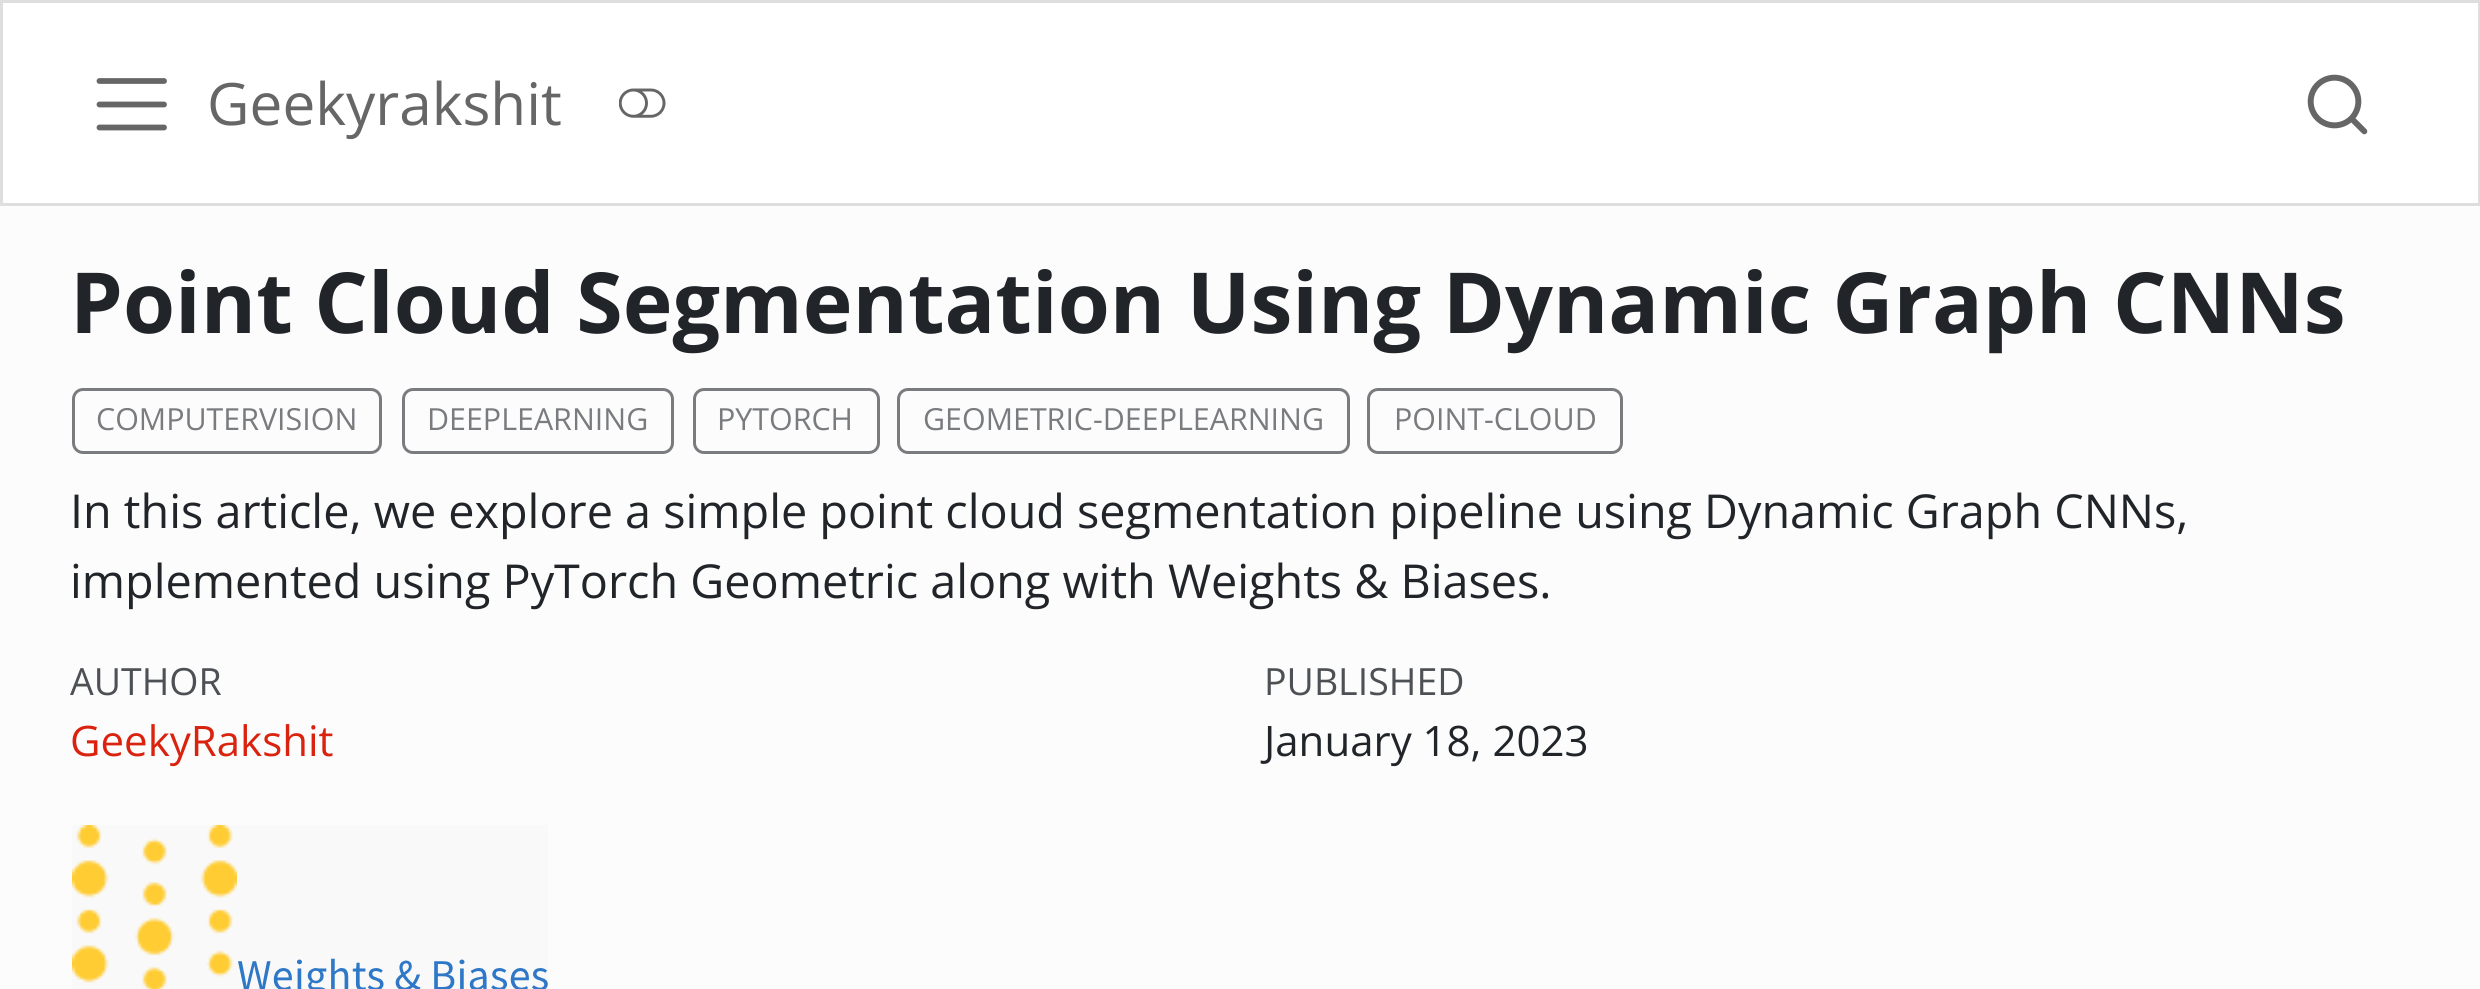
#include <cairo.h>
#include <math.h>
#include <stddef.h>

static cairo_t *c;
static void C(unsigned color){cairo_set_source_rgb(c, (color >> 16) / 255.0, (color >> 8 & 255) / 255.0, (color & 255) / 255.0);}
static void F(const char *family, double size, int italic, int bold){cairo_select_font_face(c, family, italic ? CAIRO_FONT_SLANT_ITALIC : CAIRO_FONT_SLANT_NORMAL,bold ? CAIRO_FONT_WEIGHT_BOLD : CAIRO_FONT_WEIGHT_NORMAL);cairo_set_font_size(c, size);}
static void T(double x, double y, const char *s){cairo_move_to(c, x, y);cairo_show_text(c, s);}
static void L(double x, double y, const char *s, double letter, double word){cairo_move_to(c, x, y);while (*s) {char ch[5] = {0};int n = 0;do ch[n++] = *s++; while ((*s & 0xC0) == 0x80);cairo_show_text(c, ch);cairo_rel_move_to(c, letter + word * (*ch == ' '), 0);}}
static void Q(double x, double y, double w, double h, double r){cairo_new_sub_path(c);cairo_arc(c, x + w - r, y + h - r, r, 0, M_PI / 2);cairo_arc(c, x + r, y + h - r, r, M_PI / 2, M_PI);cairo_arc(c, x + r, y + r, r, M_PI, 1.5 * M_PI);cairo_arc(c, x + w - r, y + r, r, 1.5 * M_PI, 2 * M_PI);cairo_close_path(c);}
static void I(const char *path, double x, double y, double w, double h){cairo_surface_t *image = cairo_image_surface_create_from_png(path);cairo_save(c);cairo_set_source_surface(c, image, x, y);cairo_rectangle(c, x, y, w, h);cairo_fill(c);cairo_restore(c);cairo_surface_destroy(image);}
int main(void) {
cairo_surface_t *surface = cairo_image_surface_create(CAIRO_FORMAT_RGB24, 2480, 989);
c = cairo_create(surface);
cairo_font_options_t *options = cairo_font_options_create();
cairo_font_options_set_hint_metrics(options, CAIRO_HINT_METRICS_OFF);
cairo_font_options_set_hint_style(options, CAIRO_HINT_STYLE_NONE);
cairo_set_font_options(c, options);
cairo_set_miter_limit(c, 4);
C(0xfcfcfc);
cairo_paint(c);
C(0xffffff);
cairo_rectangle(c,1.5,1.5,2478,203);
cairo_fill_preserve(c);
C(0xdedede);
cairo_set_line_width(c,3);
cairo_stroke(c);
cairo_new_path(c);
cairo_move_to(c,99.5,81);
cairo_line_to(c,164,81);
cairo_move_to(c,99.5,104.5);
cairo_line_to(c,164,104.5);
cairo_move_to(c,99.5,127.5);
cairo_line_to(c,164,127.5);
C(0x666666);
cairo_set_line_width(c,5.8);
cairo_set_line_cap(c,CAIRO_LINE_CAP_ROUND);
cairo_stroke(c);
F("Open Sans",58.5,0,0);
T(207,125,"Geekyrakshit");
I("1.png",619,88,47,30);
I("2.png",2307,74,61,61);
F("Open Sans",84.25,0,1);
C(0x212529);
L(70,333,"Point Cloud Segmentation Using Dynamic Graph CNNs",0,-.25);
Q(73.5,389.5,307,63,9.5);
C(0x797b7e);
cairo_set_line_width(c,3);
cairo_set_line_cap(c,CAIRO_LINE_CAP_BUTT);
cairo_stroke(c);
F("Open Sans",30.4,0,0);
T(96,430,"COMPUTERVISION");
Q(403.5,389.5,269,63,9.5);
cairo_stroke(c);
T(427,430,"DEEPLEARNING");
Q(694.5,389.5,184,63,9.5);
cairo_stroke(c);
T(717,430,"PYTORCH");
Q(898.5,389.5,450,63,9.5);
cairo_stroke(c);
T(923,430,"GEOMETRIC-DEEPLEARNING");
Q(1368.5,389.5,253,63,9.5);
cairo_stroke(c);
T(1394,430,"POINT-CLOUD");
F("Open Sans",46.75,0,0);
C(0x212529);
T(70,528,"In this article, we explore a simple point cloud segmentation pipeline using Dynamic Graph CNNs,");
T(70,598,"implemented using PyTorch Geometric along with Weights & Biases.");
F("Open Sans",37.5,0,0);
C(0x4d5054);
T(70,695,"AUTHOR");
F("Open Sans",42,0,0);
C(0xd9230f);
T(70,756,"GeekyRakshit");
F("Open Sans",37.5,0,0);
C(0x4d5054);
T(1264,695,"PUBLISHED");
F("Open Sans",42,0,0);
C(0x212529);
T(1264,756,"January 18, 2023");
I("3.png",72,825,476,164);
cairo_surface_write_to_png(surface, "o.png");
cairo_font_options_destroy(options);
cairo_destroy(c);
cairo_surface_destroy(surface);
return 0;
}
